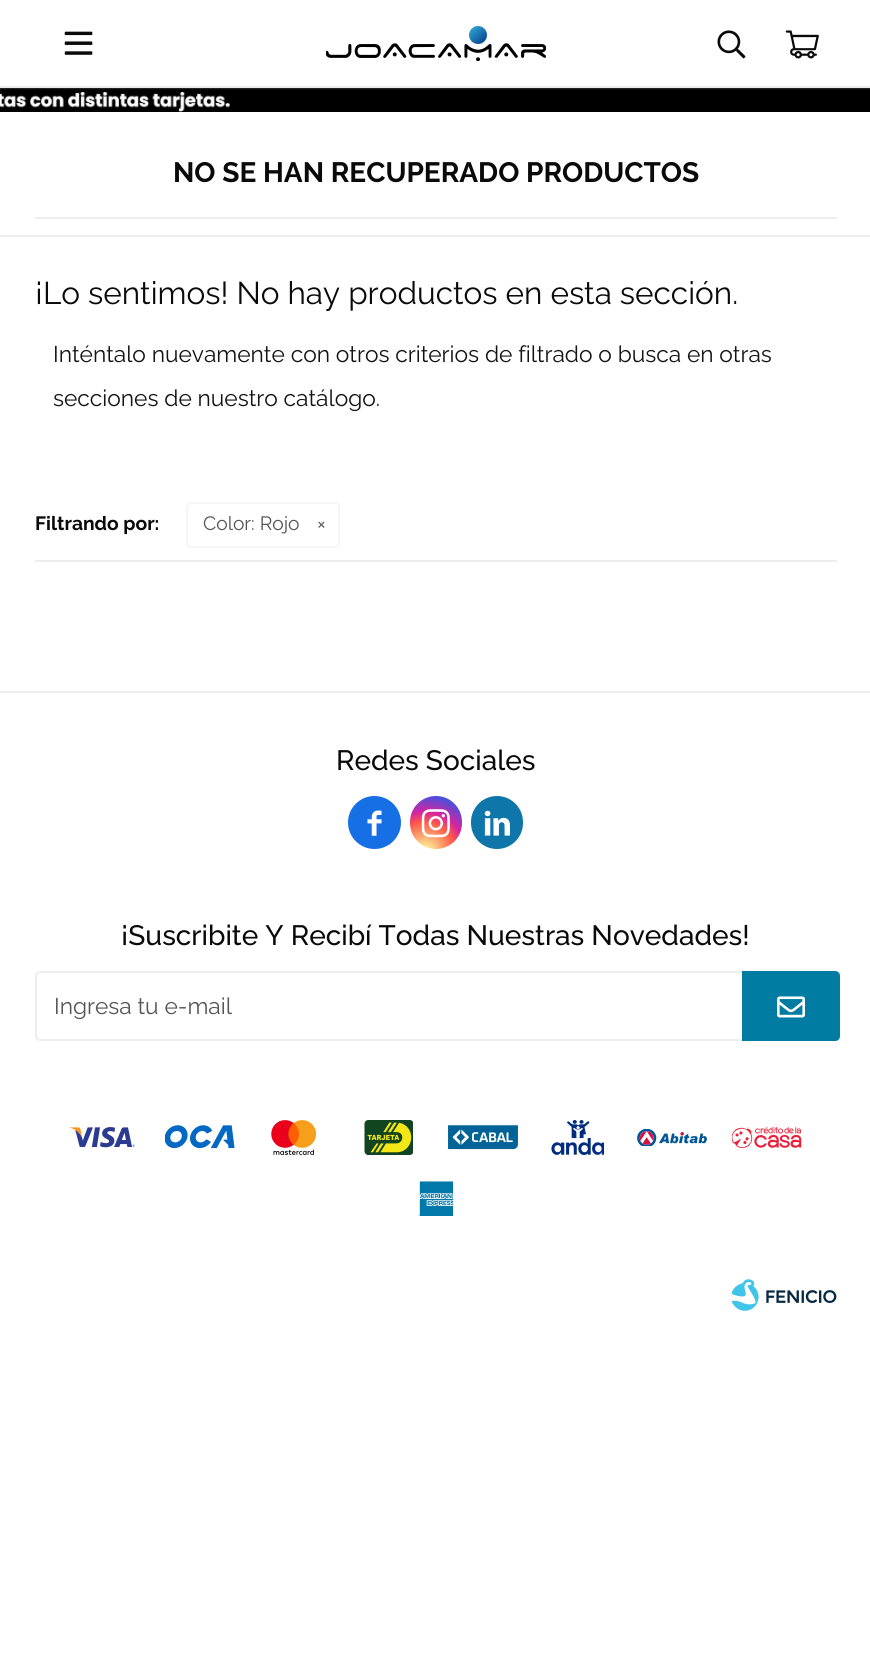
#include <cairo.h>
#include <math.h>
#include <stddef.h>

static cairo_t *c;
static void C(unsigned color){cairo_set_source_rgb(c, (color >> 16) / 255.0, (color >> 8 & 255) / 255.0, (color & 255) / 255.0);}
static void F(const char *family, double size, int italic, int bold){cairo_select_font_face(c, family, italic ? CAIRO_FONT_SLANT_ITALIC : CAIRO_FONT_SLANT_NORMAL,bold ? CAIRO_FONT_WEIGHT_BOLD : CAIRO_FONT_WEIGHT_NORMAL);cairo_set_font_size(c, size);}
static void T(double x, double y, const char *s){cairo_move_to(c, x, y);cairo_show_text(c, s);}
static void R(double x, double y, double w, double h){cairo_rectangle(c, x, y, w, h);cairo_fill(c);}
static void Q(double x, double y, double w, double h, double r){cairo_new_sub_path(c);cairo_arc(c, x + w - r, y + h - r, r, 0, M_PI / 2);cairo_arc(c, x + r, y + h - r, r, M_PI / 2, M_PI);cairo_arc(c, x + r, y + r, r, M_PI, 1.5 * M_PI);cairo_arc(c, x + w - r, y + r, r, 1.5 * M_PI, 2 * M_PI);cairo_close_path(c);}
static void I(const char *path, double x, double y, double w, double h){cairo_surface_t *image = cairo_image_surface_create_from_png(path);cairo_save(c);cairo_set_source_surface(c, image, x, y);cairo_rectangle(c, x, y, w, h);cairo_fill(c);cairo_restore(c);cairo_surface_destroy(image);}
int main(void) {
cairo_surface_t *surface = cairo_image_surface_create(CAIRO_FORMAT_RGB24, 870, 1661);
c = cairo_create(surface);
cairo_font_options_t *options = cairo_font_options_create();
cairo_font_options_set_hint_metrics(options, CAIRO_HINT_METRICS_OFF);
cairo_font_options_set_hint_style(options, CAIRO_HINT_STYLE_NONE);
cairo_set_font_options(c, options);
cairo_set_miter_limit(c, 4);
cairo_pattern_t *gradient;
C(0xffffff);
cairo_paint(c);
I("1.png",64,31,29,24);
I("2.png",326,26,220,35);
I("3.png",717,30,29,29);
I("4.png",785,30,34,29);
C(0xededed);
R(0,86,870,2);
C(0x232323);
R(0,88,870,2);
I("5.png",0,89,870,23);
C(0xededed);
R(35,217,802,2);
F("Raleway",28,0,1);
C(0x0a0a0a);
T(173,182,"NO SE HAN RECUPERADO PRODUCTOS");
C(0xededed);
R(0,235,870,2);
F("Raleway",31.5,0,0);
C(0x0a0a0a);
T(35,304,"¡Lo sentimos! No hay productos en esta sección.");
F("Raleway",22.75,0,0);
C(0x141414);
T(53,362,"Inténtalo nuevamente con otros criterios de filtrado o busca en otras");
T(53,406,"secciones de nuestro catálogo.");
C(0xededed);
R(35,560,802,2);
F("Raleway",19.25,0,1);
C(0x0a0a0a);
T(35,530,"Filtrando por:");
Q(187,503,152,44,4);
C(0xf6f6f6);
cairo_stroke(c);
F("Raleway",19.25,0,0);
C(0x555555);
T(203,530,"Color: Rojo");
T(317,530,"×");
C(0xededed);
R(0,691,870,2);
F("Raleway Medium",28,0,0);
C(0x0a0a0a);
T(336,770,"Redes Sociales");
C(0x166fe5);
cairo_new_path(c);
cairo_arc(c,374.5,822.5,26.5,0,2 * M_PI);
cairo_fill(c);
I("6.png",367,810,15,26);
gradient = cairo_pattern_create_radial(425,852,0,425,852,67);
cairo_pattern_add_color_stop_rgba(gradient,0,0.992,0.957,0.592,1);
cairo_pattern_add_color_stop_rgba(gradient,.05,0.992,0.957,0.592,1);
cairo_pattern_add_color_stop_rgba(gradient,.45,0.992,0.349,0.286,1);
cairo_pattern_add_color_stop_rgba(gradient,.6,0.839,0.141,0.624,1);
cairo_pattern_add_color_stop_rgba(gradient,.9,0.157,0.353,0.922,1);
cairo_set_source(c,gradient);
cairo_pattern_destroy(gradient);
Q(410,796,52,53,26);
cairo_fill(c);
I("7.png",421,809,29,29);
C(0x0e76a8);
Q(471,796,52,53,26);
cairo_fill(c);
I("8.png",484,810,26,26);
C(0x0a0a0a);
T(121,945,"¡Suscribite Y Recibí Todas Nuestras Novedades!");
Q(36,972,800,68,4);
C(0xededed);
cairo_stroke(c);
F("Raleway",22.75,0,0);
C(0x555555);
T(54,1014,"Ingresa tu e-mail");
C(0x007ca2);
cairo_new_path(c);
cairo_move_to(c,742,971);
cairo_line_to(c,835,971);
cairo_curve_to(c,838,971,840,973,840,976);
cairo_line_to(c,840,1036);
cairo_curve_to(c,840,1039,838,1041,835,1041);
cairo_line_to(c,742,1041);
cairo_close_path(c);
cairo_fill(c);
I("9.png",777,996,28,22);
I("10.png",70,1127,65,21);
I("11.png",165,1125,70,24);
I("12.png",271,1120,46,35);
I("13.png",364,1120,49,35);
I("14.png",448,1125,70,25);
I("15.png",551,1120,53,35);
I("16.png",637,1129,70,17);
I("17.png",732,1127,70,21);
I("18.png",418,1181,35,35);
I("19.png",732,1279,105,32);
cairo_surface_write_to_png(surface, "o.png");
cairo_font_options_destroy(options);
cairo_destroy(c);
cairo_surface_destroy(surface);
return 0;
}
